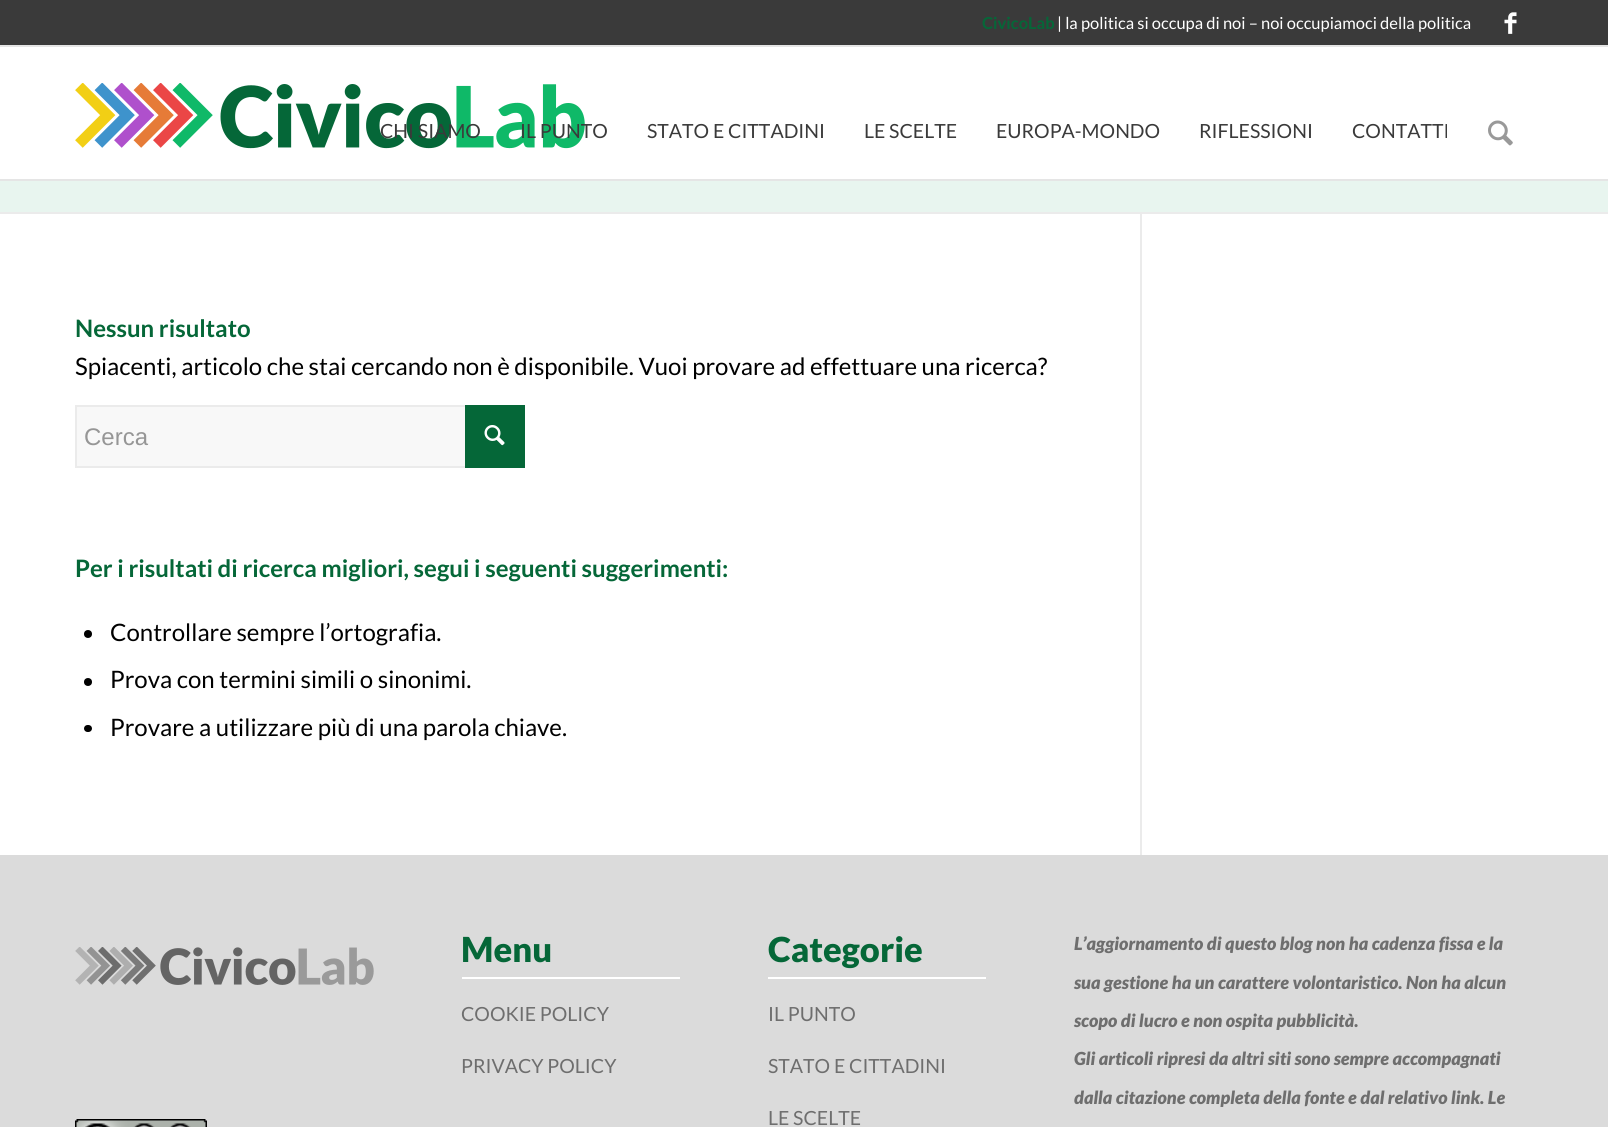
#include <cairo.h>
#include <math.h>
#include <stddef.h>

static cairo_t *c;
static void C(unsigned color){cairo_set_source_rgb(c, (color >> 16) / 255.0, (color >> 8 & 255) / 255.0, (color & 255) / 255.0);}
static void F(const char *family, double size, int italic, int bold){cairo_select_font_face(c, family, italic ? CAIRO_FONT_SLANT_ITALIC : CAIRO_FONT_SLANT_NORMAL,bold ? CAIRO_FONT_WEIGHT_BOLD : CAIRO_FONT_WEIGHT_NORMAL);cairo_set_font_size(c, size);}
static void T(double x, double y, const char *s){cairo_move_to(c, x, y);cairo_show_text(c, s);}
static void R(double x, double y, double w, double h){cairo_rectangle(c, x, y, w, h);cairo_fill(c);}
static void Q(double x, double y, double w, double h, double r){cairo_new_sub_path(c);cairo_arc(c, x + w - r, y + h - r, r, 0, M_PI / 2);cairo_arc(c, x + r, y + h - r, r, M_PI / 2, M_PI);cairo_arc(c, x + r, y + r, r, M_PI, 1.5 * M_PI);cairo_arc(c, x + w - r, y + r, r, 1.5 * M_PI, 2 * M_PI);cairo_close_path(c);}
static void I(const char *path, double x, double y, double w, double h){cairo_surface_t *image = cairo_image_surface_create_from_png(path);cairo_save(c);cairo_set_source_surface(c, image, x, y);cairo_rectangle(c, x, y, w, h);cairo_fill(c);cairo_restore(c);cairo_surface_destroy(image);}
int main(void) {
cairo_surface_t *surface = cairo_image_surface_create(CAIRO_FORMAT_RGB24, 1608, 1127);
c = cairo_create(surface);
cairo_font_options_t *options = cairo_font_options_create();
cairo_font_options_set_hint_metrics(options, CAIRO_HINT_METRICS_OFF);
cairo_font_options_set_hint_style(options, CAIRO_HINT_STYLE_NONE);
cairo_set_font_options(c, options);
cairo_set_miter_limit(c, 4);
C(0xffffff);
cairo_paint(c);
C(0x3a3a3a);
R(0,0,1608,45);
C(0xe5e5e5);
R(0,45,1608,2);
F("Lato",16.5,0,1);
C(0x056738);
T(982,29,"CivicoLab");
F("Lato",16.5,0,0);
C(0xffffff);
T(1057,29,"| la politica si occupa di noi – noi occupiamoci della politica");
I("1.png",1504,12,13,22);
C(0xe5e5e5);
R(0,179,1608,2);
I("2.png",75,83,510,66);
F("Lato",19.5,0,0);
C(0x3a3a3a);
T(380,138,"CHI SIAMO");
T(520,138,"IL PUNTO");
T(647,138,"STATO E CITTADINI");
T(864,138,"LE SCELTE");
T(996,138,"EUROPA-MONDO");
T(1199,138,"RIFLESSIONI");
T(1352,138,"CONTATTI");
I("3.png",1488,120,25,26);
C(0xe8f5ef);
R(0,181,1608,31);
C(0xebebeb);
R(0,212,1608,2);
R(1140,213,2,642);
F("Lato",24,0,1);
C(0x056738);
T(75,337,"Nessun risultato");
F("Lato",24,0,0);
C(0x000000);
T(75,375,"Spiacenti, articolo che stai cercando non è disponibile. Vuoi provare ad effettuare una ricerca?");
C(0xf8f8f8);
R(77,407,388,59);
cairo_rectangle(c,76,406,448,61);
C(0xebebeb);
cairo_stroke(c);
F("Liberation Sans",24,0,0);
C(0x969696);
T(84,445,"Cerca");
C(0x056738);
R(465,405,60,63);
I("4.png",484,425,21,21);
F("Lato",24,0,1);
T(75,577,"Per i risultati di ricerca migliori, segui i seguenti suggerimenti:");
C(0x000000);
cairo_new_path(c);
cairo_arc(c,88,634,4,0,2 * M_PI);
cairo_fill(c);
F("Lato",24,0,0);
T(110,641,"Controllare sempre l’ortografia.");
cairo_new_path(c);
cairo_arc(c,88,682,4,0,2 * M_PI);
cairo_fill(c);
T(110,688,"Prova con termini simili o sinonimi.");
Q(84,725,8,7,3.5);
cairo_fill(c);
T(110,736,"Provare a utilizzare più di una parola chiave.");
C(0xdbdbdb);
R(0,855,1608,272);
I("5.png",75,947,299,38);
I("6.png",75,1119,132,8);
C(0xffffff);
R(462,977,218,2);
F("Lato Black",34.5,0,0);
C(0x056738);
T(461,962,"Menu");
F("Lato",19.5,0,0);
C(0x6e6e6e);
T(461,1021,"COOKIE POLICY");
T(461,1073,"PRIVACY POLICY");
C(0xffffff);
R(768,977,218,2);
F("Lato Black",34.5,0,0);
C(0x056738);
T(768,962,"Categorie");
F("Lato",19.5,0,0);
C(0x6e6e6e);
T(768,1021,"IL PUNTO");
T(768,1073,"STATO E CITTADINI");
T(768,1125,"LE SCELTE");
F("Lato Black",18,1,0);
T(1074,950,"L’aggiornamento di questo blog non ha cadenza fissa e la");
T(1074,989,"sua gestione ha un carattere volontaristico. Non ha alcun");
T(1074,1027,"scopo di lucro e non ospita pubblicità.");
T(1074,1065,"Gli articoli ripresi da altri siti sono sempre accompagnati");
T(1074,1104,"dalla citazione completa della fonte e dal relativo link. Le");
cairo_surface_write_to_png(surface, "o.png");
cairo_font_options_destroy(options);
cairo_destroy(c);
cairo_surface_destroy(surface);
return 0;
}
